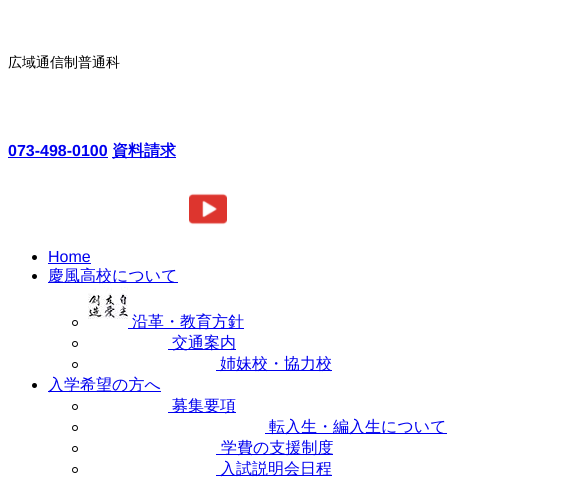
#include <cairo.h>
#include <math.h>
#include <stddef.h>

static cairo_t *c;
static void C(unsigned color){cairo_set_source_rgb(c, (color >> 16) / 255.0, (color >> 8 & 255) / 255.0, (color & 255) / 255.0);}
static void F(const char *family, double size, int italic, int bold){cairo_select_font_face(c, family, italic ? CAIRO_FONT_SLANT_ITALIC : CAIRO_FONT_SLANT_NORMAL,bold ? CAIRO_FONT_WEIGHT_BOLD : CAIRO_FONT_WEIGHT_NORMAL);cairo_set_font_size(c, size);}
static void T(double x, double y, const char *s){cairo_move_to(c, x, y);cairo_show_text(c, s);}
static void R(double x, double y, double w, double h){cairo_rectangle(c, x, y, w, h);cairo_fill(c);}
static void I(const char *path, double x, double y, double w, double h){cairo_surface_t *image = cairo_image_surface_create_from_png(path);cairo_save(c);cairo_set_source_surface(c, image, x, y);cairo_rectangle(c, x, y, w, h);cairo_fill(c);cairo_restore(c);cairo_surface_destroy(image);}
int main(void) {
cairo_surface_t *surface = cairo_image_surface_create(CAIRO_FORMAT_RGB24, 582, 477);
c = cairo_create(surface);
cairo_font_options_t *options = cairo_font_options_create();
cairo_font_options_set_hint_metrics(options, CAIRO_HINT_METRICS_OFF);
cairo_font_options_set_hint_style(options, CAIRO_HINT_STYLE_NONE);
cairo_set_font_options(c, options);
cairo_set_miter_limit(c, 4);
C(0xffffff);
cairo_paint(c);
F("WenQuanYi Zen Hei Medium",14,0,0);
C(0x000000);
T(8,67,"広域通信制普通科");
F("Liberation Sans",16,0,1);
C(0x0000ee);
T(8,156,"073-498-0100");
R(8,157,100,1);
R(112,157,64,1);
F("WenQuanYi Zen Hei",16,0,1);
T(112,156,"資料請求");
I("1.png",189,193,38,32);
C(0x000000);
cairo_arc(c,34.5,257.5,2.5,0,2 * M_PI);
cairo_fill(c);
F("Liberation Sans",16,0,0);
C(0x0000ee);
T(48,262,"Home");
R(48,263,43,1);
C(0x000000);
cairo_new_path(c);
cairo_arc(c,34.5,276.5,2.5,0,2 * M_PI);
cairo_fill(c);
C(0x0000ee);
R(48,282,130,1);
F("WenQuanYi Zen Hei Medium",16,0,0);
T(48,281,"慶風高校について");
I("2.png",88,287,40,32);
cairo_arc(c,75,323,2.5,0,2 * M_PI);
C(0x000000);
cairo_set_line_width(c,1);
cairo_stroke(c);
C(0x0000ee);
R(128,328,116,1);
T(132,327,"沿革・教育方針");
cairo_new_path(c);
cairo_arc(c,75,344,2.5,0,2 * M_PI);
C(0x000000);
cairo_stroke(c);
C(0x0000ee);
R(168,349,68,1);
T(172,348,"交通案内");
cairo_new_path(c);
cairo_arc(c,75,365,2.5,0,2 * M_PI);
C(0x000000);
cairo_stroke(c);
C(0x0000ee);
R(216,370,116,1);
T(220,369,"姉妹校・協力校");
C(0x000000);
cairo_new_path(c);
cairo_arc(c,34.5,385.5,2.5,0,2 * M_PI);
cairo_fill(c);
C(0x0000ee);
R(48,391,113,1);
T(48,390,"入学希望の方へ");
cairo_new_path(c);
cairo_arc(c,75,407,2.5,0,2 * M_PI);
C(0x000000);
cairo_stroke(c);
C(0x0000ee);
R(168,412,68,1);
T(172,411,"募集要項");
cairo_new_path(c);
cairo_arc(c,75,428,2.5,0,2 * M_PI);
C(0x000000);
cairo_stroke(c);
C(0x0000ee);
R(265,433,182,1);
T(269,432,"転入生・編入生について");
cairo_new_path(c);
cairo_arc(c,75,449,2.5,0,2 * M_PI);
C(0x000000);
cairo_stroke(c);
C(0x0000ee);
R(216,454,117,1);
T(221,453,"学費の支援制度");
cairo_new_path(c);
cairo_arc(c,75,470,2.5,0,2 * M_PI);
C(0x000000);
cairo_stroke(c);
C(0x0000ee);
R(216,475,116,1);
T(220,474,"入試説明会日程");
cairo_surface_write_to_png(surface, "o.png");
cairo_font_options_destroy(options);
cairo_destroy(c);
cairo_surface_destroy(surface);
return 0;
}
